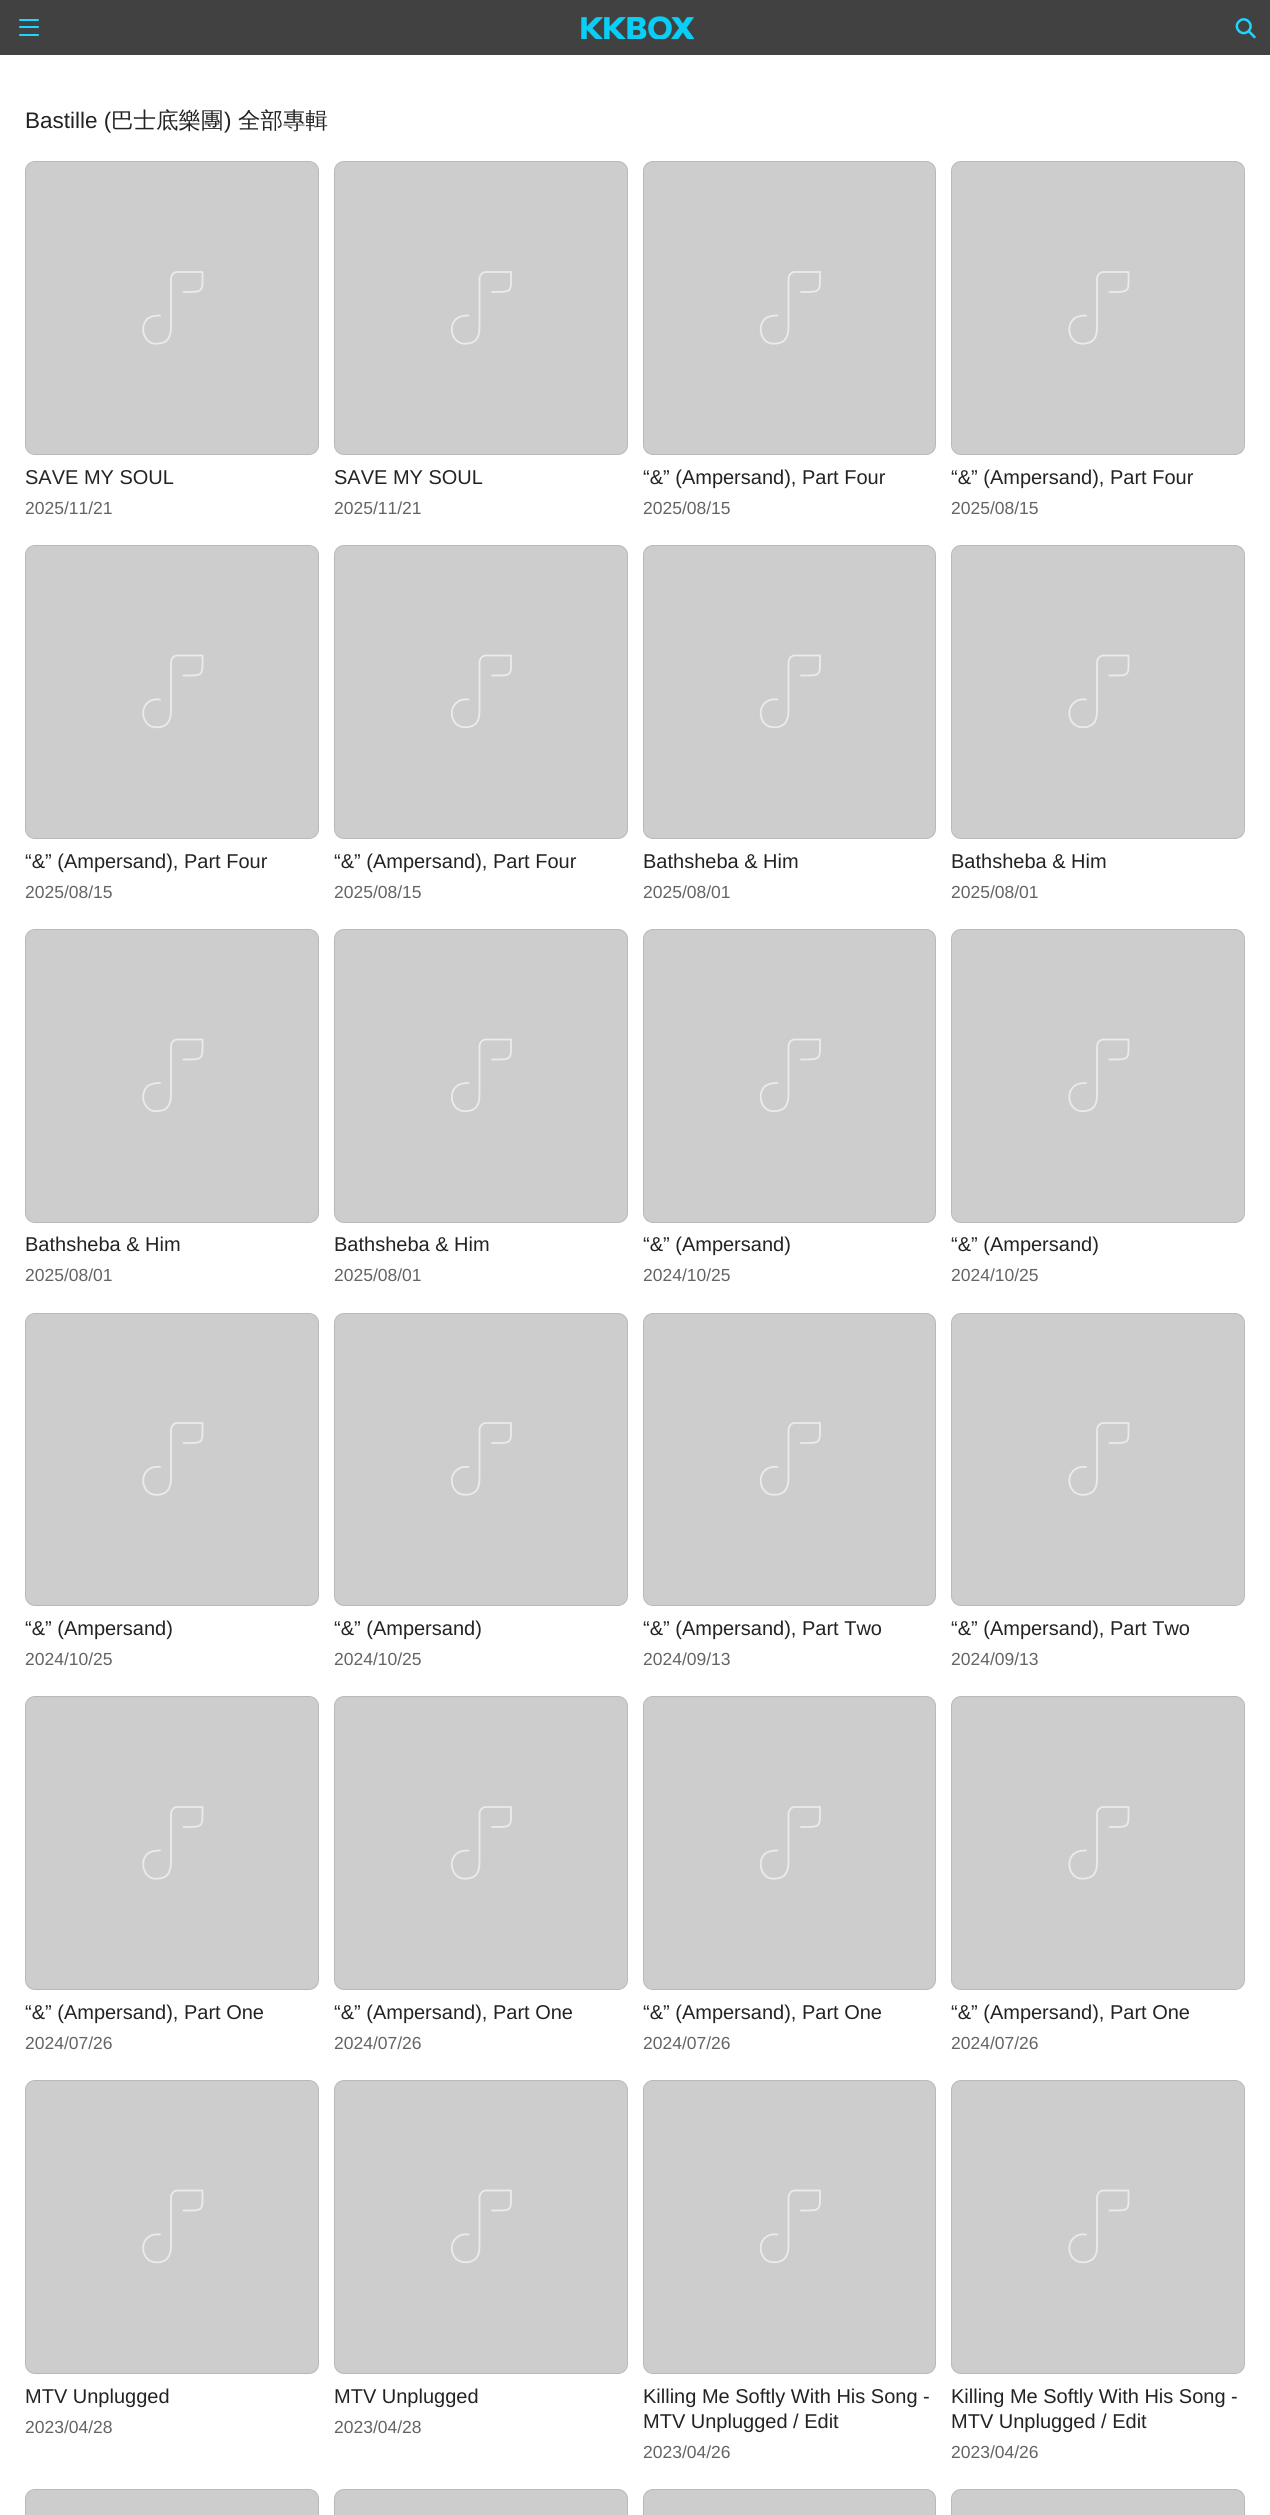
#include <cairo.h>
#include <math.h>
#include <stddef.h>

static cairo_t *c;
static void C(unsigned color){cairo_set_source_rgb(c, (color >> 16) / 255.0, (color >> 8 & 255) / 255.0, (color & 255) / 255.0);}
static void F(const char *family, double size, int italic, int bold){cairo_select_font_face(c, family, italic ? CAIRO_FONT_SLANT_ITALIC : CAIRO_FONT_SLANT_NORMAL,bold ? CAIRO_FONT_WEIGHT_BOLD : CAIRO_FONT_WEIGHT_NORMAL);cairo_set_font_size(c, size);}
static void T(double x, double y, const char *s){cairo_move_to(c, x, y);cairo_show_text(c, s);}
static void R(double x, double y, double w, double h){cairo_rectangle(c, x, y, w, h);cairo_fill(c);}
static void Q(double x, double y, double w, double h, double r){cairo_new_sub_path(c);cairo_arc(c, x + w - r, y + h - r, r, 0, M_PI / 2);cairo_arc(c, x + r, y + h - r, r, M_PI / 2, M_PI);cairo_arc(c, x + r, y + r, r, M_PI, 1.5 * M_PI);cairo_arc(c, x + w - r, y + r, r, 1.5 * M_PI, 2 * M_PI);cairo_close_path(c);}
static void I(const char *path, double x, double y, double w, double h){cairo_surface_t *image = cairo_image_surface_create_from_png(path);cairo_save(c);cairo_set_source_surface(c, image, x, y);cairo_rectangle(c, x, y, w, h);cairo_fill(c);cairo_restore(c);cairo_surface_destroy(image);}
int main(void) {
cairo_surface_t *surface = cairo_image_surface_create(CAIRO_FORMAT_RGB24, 1270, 2515);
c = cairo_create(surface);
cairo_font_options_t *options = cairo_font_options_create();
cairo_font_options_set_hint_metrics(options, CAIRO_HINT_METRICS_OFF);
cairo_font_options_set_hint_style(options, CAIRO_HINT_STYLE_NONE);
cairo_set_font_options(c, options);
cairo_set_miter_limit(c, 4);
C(0xffffff);
cairo_paint(c);
C(0x414141);
R(0,0,1270,55);
C(0x1dd6ff);
Q(19,19,20,2,1);
cairo_fill(c);
Q(19,26,20,2,1);
cairo_fill(c);
Q(19,34,20,2,1);
cairo_fill(c);
I("1.png",581,16,113,23);
cairo_new_path(c);
cairo_move_to(c,1239,21.5);
cairo_curve_to(c,1245,15,1255,24.5,1248.5,31);
cairo_curve_to(c,1242,37.5,1232.5,27.5,1239,21.5);
cairo_close_path(c);
cairo_move_to(c,1249,31.5);
cairo_line_to(c,1254.5,37);
cairo_set_line_width(c,2.5);
cairo_set_line_cap(c,CAIRO_LINE_CAP_ROUND);
cairo_set_line_join(c,CAIRO_LINE_JOIN_ROUND);
cairo_stroke(c);
F("Liberation Sans",22.5,0,0);
C(0x232323);
T(25,128,"Bastille (");
F("WenQuanYi Zen Hei Medium",22.5,0,0);
T(111,128,"巴士底樂團");
F("Liberation Sans",22.5,0,0);
T(224,128,")");
F("WenQuanYi Zen Hei Medium",22.5,0,0);
T(238,128,"全部專輯");
C(0xcdcdcd);
Q(25,161,294,294,10);
cairo_fill(c);
cairo_new_path(c);
cairo_move_to(c,160,315.5);
cairo_curve_to(c,156,315.5,152,316,148.5,318);
cairo_curve_to(c,139.5,324.5,142.5,341.5,153.5,343.5);
cairo_curve_to(c,157,344,160.5,343.5,163.5,342.5);
cairo_curve_to(c,170.5,339.5,171,331.5,171,325);
cairo_line_to(c,171,327.5);
cairo_line_to(c,171,279);
cairo_curve_to(c,171,274.5,174.5,272,177,272);
cairo_line_to(c,202.5,272);
cairo_curve_to(c,202.5,292.5,204,292,183.5,292);
C(0xebebeb);
cairo_set_line_width(c,1.8);
cairo_stroke(c);
Q(25.5,161.5,293,293,9.5);
cairo_set_source_rgba(c,0,0,0,0.1);
cairo_set_line_width(c,1);
cairo_set_line_cap(c,CAIRO_LINE_CAP_BUTT);
cairo_set_line_join(c,CAIRO_LINE_JOIN_MITER);
cairo_stroke(c);
F("Liberation Sans",20,0,0);
C(0x232323);
T(25,484,"SAVE MY SOUL");
F("Liberation Sans",17.5,0,0);
C(0x646464);
T(25,514,"2025/11/21");
C(0xcdcdcd);
Q(334,161,294,294,10);
cairo_fill(c);
cairo_new_path(c);
cairo_move_to(c,468.5,315.5);
cairo_curve_to(c,464.5,315.5,460.5,316,457.5,318);
cairo_curve_to(c,448,324.5,451,341.5,462.5,343.5);
cairo_curve_to(c,465.5,344,469,343.5,472,342.5);
cairo_curve_to(c,479.5,339.5,479.5,331.5,479.5,325);
cairo_line_to(c,479.5,327.5);
cairo_line_to(c,479.5,279);
cairo_curve_to(c,479.5,274.5,483,272,486,272);
cairo_line_to(c,511,272);
cairo_curve_to(c,511,292.5,513,292,492,292);
C(0xebebeb);
cairo_set_line_width(c,1.8);
cairo_set_line_cap(c,CAIRO_LINE_CAP_ROUND);
cairo_set_line_join(c,CAIRO_LINE_JOIN_ROUND);
cairo_stroke(c);
Q(334.5,161.5,293,293,9.5);
cairo_set_source_rgba(c,0,0,0,0.1);
cairo_set_line_width(c,1);
cairo_set_line_cap(c,CAIRO_LINE_CAP_BUTT);
cairo_set_line_join(c,CAIRO_LINE_JOIN_MITER);
cairo_stroke(c);
F("Liberation Sans",20,0,0);
C(0x232323);
T(334,484,"SAVE MY SOUL");
F("Liberation Sans",17.5,0,0);
C(0x646464);
T(334,514,"2025/11/21");
C(0xcdcdcd);
Q(643,161,293,294,10);
cairo_fill(c);
cairo_new_path(c);
cairo_move_to(c,777.5,315.5);
cairo_curve_to(c,773.5,315.5,769.5,316,766,318);
cairo_curve_to(c,757,324.5,760,341.5,771,343.5);
cairo_curve_to(c,774.5,344,778,343.5,781,342.5);
cairo_curve_to(c,788,339.5,788.5,331.5,788.5,325);
cairo_line_to(c,788.5,327.5);
cairo_line_to(c,788.5,279);
cairo_curve_to(c,788.5,274.5,792,272,794.5,272);
cairo_line_to(c,820,272);
cairo_curve_to(c,820,292.5,821.5,292,801,292);
C(0xebebeb);
cairo_set_line_width(c,1.8);
cairo_set_line_cap(c,CAIRO_LINE_CAP_ROUND);
cairo_set_line_join(c,CAIRO_LINE_JOIN_ROUND);
cairo_stroke(c);
Q(643.5,161.5,292,293,9.5);
cairo_set_source_rgba(c,0,0,0,0.1);
cairo_set_line_width(c,1);
cairo_set_line_cap(c,CAIRO_LINE_CAP_BUTT);
cairo_set_line_join(c,CAIRO_LINE_JOIN_MITER);
cairo_stroke(c);
F("Liberation Sans",20,0,0);
C(0x232323);
T(643,484,"“&” (Ampersand), Part Four");
F("Liberation Sans",17.5,0,0);
C(0x646464);
T(643,514,"2025/08/15");
C(0xcdcdcd);
Q(951,161,294,294,10);
cairo_fill(c);
cairo_new_path(c);
cairo_move_to(c,1086,315.5);
cairo_curve_to(c,1082,315.5,1078,316,1075,318);
cairo_curve_to(c,1065.5,324.5,1068.5,341.5,1080,343.5);
cairo_curve_to(c,1083,344,1086.5,343.5,1089.5,342.5);
cairo_curve_to(c,1097,339.5,1097,331.5,1097,325);
cairo_line_to(c,1097,327.5);
cairo_line_to(c,1097,279);
cairo_curve_to(c,1097,274.5,1100.5,272,1103.5,272);
cairo_line_to(c,1128.5,272);
cairo_curve_to(c,1128.5,292.5,1130.5,292,1109.5,292);
C(0xebebeb);
cairo_set_line_width(c,1.8);
cairo_set_line_cap(c,CAIRO_LINE_CAP_ROUND);
cairo_set_line_join(c,CAIRO_LINE_JOIN_ROUND);
cairo_stroke(c);
Q(951.5,161.5,293,293,9.5);
cairo_set_source_rgba(c,0,0,0,0.1);
cairo_set_line_width(c,1);
cairo_set_line_cap(c,CAIRO_LINE_CAP_BUTT);
cairo_set_line_join(c,CAIRO_LINE_JOIN_MITER);
cairo_stroke(c);
F("Liberation Sans",20,0,0);
C(0x232323);
T(951,484,"“&” (Ampersand), Part Four");
F("Liberation Sans",17.5,0,0);
C(0x646464);
T(951,514,"2025/08/15");
C(0xcdcdcd);
Q(25,545,294,294,10);
cairo_fill(c);
cairo_new_path(c);
cairo_move_to(c,160,699.5);
cairo_curve_to(c,156,699,152,699.5,148.5,702);
cairo_curve_to(c,139.5,708.5,142.5,725,153.5,727);
cairo_curve_to(c,157,727.5,160.5,727.5,163.5,726);
cairo_curve_to(c,170.5,723,171,715.5,171,708.5);
cairo_line_to(c,171,711.5);
cairo_line_to(c,171,663);
cairo_curve_to(c,171,658,174.5,655.5,177,655.5);
cairo_line_to(c,202.5,655.5);
cairo_curve_to(c,202.5,676.5,204,675.5,183.5,675.5);
C(0xebebeb);
cairo_set_line_width(c,1.8);
cairo_set_line_cap(c,CAIRO_LINE_CAP_ROUND);
cairo_set_line_join(c,CAIRO_LINE_JOIN_ROUND);
cairo_stroke(c);
Q(25.5,545.5,293,293,9.5);
cairo_set_source_rgba(c,0,0,0,0.1);
cairo_set_line_width(c,1);
cairo_set_line_cap(c,CAIRO_LINE_CAP_BUTT);
cairo_set_line_join(c,CAIRO_LINE_JOIN_MITER);
cairo_stroke(c);
F("Liberation Sans",20,0,0);
C(0x232323);
T(25,868,"“&” (Ampersand), Part Four");
F("Liberation Sans",17.5,0,0);
C(0x646464);
T(25,898,"2025/08/15");
C(0xcdcdcd);
Q(334,545,294,294,10);
cairo_fill(c);
cairo_new_path(c);
cairo_move_to(c,468.5,699.5);
cairo_curve_to(c,464.5,699,460.5,699.5,457.5,702);
cairo_curve_to(c,448,708.5,451,725,462.5,727);
cairo_curve_to(c,465.5,727.5,469,727.5,472,726);
cairo_curve_to(c,479.5,723,479.5,715.5,479.5,708.5);
cairo_line_to(c,479.5,711.5);
cairo_line_to(c,479.5,663);
cairo_curve_to(c,479.5,658,483,655.5,486,655.5);
cairo_line_to(c,511,655.5);
cairo_curve_to(c,511,676.5,513,675.5,492,675.5);
C(0xebebeb);
cairo_set_line_width(c,1.8);
cairo_set_line_cap(c,CAIRO_LINE_CAP_ROUND);
cairo_set_line_join(c,CAIRO_LINE_JOIN_ROUND);
cairo_stroke(c);
Q(334.5,545.5,293,293,9.5);
cairo_set_source_rgba(c,0,0,0,0.1);
cairo_set_line_width(c,1);
cairo_set_line_cap(c,CAIRO_LINE_CAP_BUTT);
cairo_set_line_join(c,CAIRO_LINE_JOIN_MITER);
cairo_stroke(c);
F("Liberation Sans",20,0,0);
C(0x232323);
T(334,868,"“&” (Ampersand), Part Four");
F("Liberation Sans",17.5,0,0);
C(0x646464);
T(334,898,"2025/08/15");
C(0xcdcdcd);
Q(643,545,293,294,10);
cairo_fill(c);
cairo_new_path(c);
cairo_move_to(c,777.5,699.5);
cairo_curve_to(c,773.5,699,769.5,699.5,766,702);
cairo_curve_to(c,757,708.5,760,725,771,727);
cairo_curve_to(c,774.5,727.5,778,727.5,781,726);
cairo_curve_to(c,788,723,788.5,715.5,788.5,708.5);
cairo_line_to(c,788.5,711.5);
cairo_line_to(c,788.5,663);
cairo_curve_to(c,788.5,658,792,655.5,794.5,655.5);
cairo_line_to(c,820,655.5);
cairo_curve_to(c,820,676.5,821.5,675.5,801,675.5);
C(0xebebeb);
cairo_set_line_width(c,1.8);
cairo_set_line_cap(c,CAIRO_LINE_CAP_ROUND);
cairo_set_line_join(c,CAIRO_LINE_JOIN_ROUND);
cairo_stroke(c);
Q(643.5,545.5,292,293,9.5);
cairo_set_source_rgba(c,0,0,0,0.1);
cairo_set_line_width(c,1);
cairo_set_line_cap(c,CAIRO_LINE_CAP_BUTT);
cairo_set_line_join(c,CAIRO_LINE_JOIN_MITER);
cairo_stroke(c);
F("Liberation Sans",20,0,0);
C(0x232323);
T(643,868,"Bathsheba & Him");
F("Liberation Sans",17.5,0,0);
C(0x646464);
T(643,898,"2025/08/01");
C(0xcdcdcd);
Q(951,545,294,294,10);
cairo_fill(c);
cairo_new_path(c);
cairo_move_to(c,1086,699.5);
cairo_curve_to(c,1082,699,1078,699.5,1075,702);
cairo_curve_to(c,1065.5,708.5,1068.5,725,1080,727);
cairo_curve_to(c,1083,727.5,1086.5,727.5,1089.5,726);
cairo_curve_to(c,1097,723,1097,715.5,1097,708.5);
cairo_line_to(c,1097,711.5);
cairo_line_to(c,1097,663);
cairo_curve_to(c,1097,658,1100.5,655.5,1103.5,655.5);
cairo_line_to(c,1128.5,655.5);
cairo_curve_to(c,1128.5,676.5,1130.5,675.5,1109.5,675.5);
C(0xebebeb);
cairo_set_line_width(c,1.8);
cairo_set_line_cap(c,CAIRO_LINE_CAP_ROUND);
cairo_set_line_join(c,CAIRO_LINE_JOIN_ROUND);
cairo_stroke(c);
Q(951.5,545.5,293,293,9.5);
cairo_set_source_rgba(c,0,0,0,0.1);
cairo_set_line_width(c,1);
cairo_set_line_cap(c,CAIRO_LINE_CAP_BUTT);
cairo_set_line_join(c,CAIRO_LINE_JOIN_MITER);
cairo_stroke(c);
F("Liberation Sans",20,0,0);
C(0x232323);
T(951,868,"Bathsheba & Him");
F("Liberation Sans",17.5,0,0);
C(0x646464);
T(951,898,"2025/08/01");
C(0xcdcdcd);
Q(25,929,294,294,10);
cairo_fill(c);
cairo_new_path(c);
cairo_move_to(c,160,1083);
cairo_curve_to(c,156,1083,152,1083.5,148.5,1085.5);
cairo_curve_to(c,139.5,1092,142.5,1109,153.5,1111);
cairo_curve_to(c,157,1111.5,160.5,1111,163.5,1110);
cairo_curve_to(c,170.5,1107,171,1099,171,1092.5);
cairo_line_to(c,171,1095);
cairo_line_to(c,171,1046.5);
cairo_curve_to(c,171,1042,174.5,1039.5,177,1039.5);
cairo_line_to(c,202.5,1039.5);
cairo_curve_to(c,202.5,1060,204,1059.5,183.5,1059.5);
C(0xebebeb);
cairo_set_line_width(c,1.8);
cairo_set_line_cap(c,CAIRO_LINE_CAP_ROUND);
cairo_set_line_join(c,CAIRO_LINE_JOIN_ROUND);
cairo_stroke(c);
Q(25.5,929.5,293,293,9.5);
cairo_set_source_rgba(c,0,0,0,0.1);
cairo_set_line_width(c,1);
cairo_set_line_cap(c,CAIRO_LINE_CAP_BUTT);
cairo_set_line_join(c,CAIRO_LINE_JOIN_MITER);
cairo_stroke(c);
F("Liberation Sans",20,0,0);
C(0x232323);
T(25,1251,"Bathsheba & Him");
F("Liberation Sans",17.5,0,0);
C(0x646464);
T(25,1281,"2025/08/01");
C(0xcdcdcd);
Q(334,929,294,294,10);
cairo_fill(c);
cairo_new_path(c);
cairo_move_to(c,468.5,1083);
cairo_curve_to(c,464.5,1083,460.5,1083.5,457.5,1085.5);
cairo_curve_to(c,448,1092,451,1109,462.5,1111);
cairo_curve_to(c,465.5,1111.5,469,1111,472,1110);
cairo_curve_to(c,479.5,1107,479.5,1099,479.5,1092.5);
cairo_line_to(c,479.5,1095);
cairo_line_to(c,479.5,1046.5);
cairo_curve_to(c,479.5,1042,483,1039.5,486,1039.5);
cairo_line_to(c,511,1039.5);
cairo_curve_to(c,511,1060,513,1059.5,492,1059.5);
C(0xebebeb);
cairo_set_line_width(c,1.8);
cairo_set_line_cap(c,CAIRO_LINE_CAP_ROUND);
cairo_set_line_join(c,CAIRO_LINE_JOIN_ROUND);
cairo_stroke(c);
Q(334.5,929.5,293,293,9.5);
cairo_set_source_rgba(c,0,0,0,0.1);
cairo_set_line_width(c,1);
cairo_set_line_cap(c,CAIRO_LINE_CAP_BUTT);
cairo_set_line_join(c,CAIRO_LINE_JOIN_MITER);
cairo_stroke(c);
F("Liberation Sans",20,0,0);
C(0x232323);
T(334,1251,"Bathsheba & Him");
F("Liberation Sans",17.5,0,0);
C(0x646464);
T(334,1281,"2025/08/01");
C(0xcdcdcd);
Q(643,929,293,294,10);
cairo_fill(c);
cairo_new_path(c);
cairo_move_to(c,777.5,1083);
cairo_curve_to(c,773.5,1083,769.5,1083.5,766,1085.5);
cairo_curve_to(c,757,1092,760,1109,771,1111);
cairo_curve_to(c,774.5,1111.5,778,1111,781,1110);
cairo_curve_to(c,788,1107,788.5,1099,788.5,1092.5);
cairo_line_to(c,788.5,1095);
cairo_line_to(c,788.5,1046.5);
cairo_curve_to(c,788.5,1042,792,1039.5,794.5,1039.5);
cairo_line_to(c,820,1039.5);
cairo_curve_to(c,820,1060,821.5,1059.5,801,1059.5);
C(0xebebeb);
cairo_set_line_width(c,1.8);
cairo_set_line_cap(c,CAIRO_LINE_CAP_ROUND);
cairo_set_line_join(c,CAIRO_LINE_JOIN_ROUND);
cairo_stroke(c);
Q(643.5,929.5,292,293,9.5);
cairo_set_source_rgba(c,0,0,0,0.1);
cairo_set_line_width(c,1);
cairo_set_line_cap(c,CAIRO_LINE_CAP_BUTT);
cairo_set_line_join(c,CAIRO_LINE_JOIN_MITER);
cairo_stroke(c);
F("Liberation Sans",20,0,0);
C(0x232323);
T(643,1251,"“&” (Ampersand)");
F("Liberation Sans",17.5,0,0);
C(0x646464);
T(643,1281,"2024/10/25");
C(0xcdcdcd);
Q(951,929,294,294,10);
cairo_fill(c);
cairo_new_path(c);
cairo_move_to(c,1086,1083);
cairo_curve_to(c,1082,1083,1078,1083.5,1075,1085.5);
cairo_curve_to(c,1065.5,1092,1068.5,1109,1080,1111);
cairo_curve_to(c,1083,1111.5,1086.5,1111,1089.5,1110);
cairo_curve_to(c,1097,1107,1097,1099,1097,1092.5);
cairo_line_to(c,1097,1095);
cairo_line_to(c,1097,1046.5);
cairo_curve_to(c,1097,1042,1100.5,1039.5,1103.5,1039.5);
cairo_line_to(c,1128.5,1039.5);
cairo_curve_to(c,1128.5,1060,1130.5,1059.5,1109.5,1059.5);
C(0xebebeb);
cairo_set_line_width(c,1.8);
cairo_set_line_cap(c,CAIRO_LINE_CAP_ROUND);
cairo_set_line_join(c,CAIRO_LINE_JOIN_ROUND);
cairo_stroke(c);
Q(951.5,929.5,293,293,9.5);
cairo_set_source_rgba(c,0,0,0,0.1);
cairo_set_line_width(c,1);
cairo_set_line_cap(c,CAIRO_LINE_CAP_BUTT);
cairo_set_line_join(c,CAIRO_LINE_JOIN_MITER);
cairo_stroke(c);
F("Liberation Sans",20,0,0);
C(0x232323);
T(951,1251,"“&” (Ampersand)");
F("Liberation Sans",17.5,0,0);
C(0x646464);
T(951,1281,"2024/10/25");
C(0xcdcdcd);
Q(25,1313,294,293,10);
cairo_fill(c);
cairo_new_path(c);
cairo_move_to(c,160,1467);
cairo_curve_to(c,156,1466.5,152,1467,148.5,1469.5);
cairo_curve_to(c,139.5,1476,142.5,1492.5,153.5,1494.5);
cairo_curve_to(c,157,1495,160.5,1495,163.5,1493.5);
cairo_curve_to(c,170.5,1490.5,171,1483,171,1476);
cairo_line_to(c,171,1479);
cairo_line_to(c,171,1430.5);
cairo_curve_to(c,171,1425.5,174.5,1423,177,1423);
cairo_line_to(c,202.5,1423);
cairo_curve_to(c,202.5,1444,204,1443,183.5,1443);
C(0xebebeb);
cairo_set_line_width(c,1.8);
cairo_set_line_cap(c,CAIRO_LINE_CAP_ROUND);
cairo_set_line_join(c,CAIRO_LINE_JOIN_ROUND);
cairo_stroke(c);
Q(25.5,1313.5,293,292,9.5);
cairo_set_source_rgba(c,0,0,0,0.1);
cairo_set_line_width(c,1);
cairo_set_line_cap(c,CAIRO_LINE_CAP_BUTT);
cairo_set_line_join(c,CAIRO_LINE_JOIN_MITER);
cairo_stroke(c);
F("Liberation Sans",20,0,0);
C(0x232323);
T(25,1635,"“&” (Ampersand)");
F("Liberation Sans",17.5,0,0);
C(0x646464);
T(25,1665,"2024/10/25");
C(0xcdcdcd);
Q(334,1313,294,293,10);
cairo_fill(c);
cairo_new_path(c);
cairo_move_to(c,468.5,1467);
cairo_curve_to(c,464.5,1466.5,460.5,1467,457.5,1469.5);
cairo_curve_to(c,448,1476,451,1492.5,462.5,1494.5);
cairo_curve_to(c,465.5,1495,469,1495,472,1493.5);
cairo_curve_to(c,479.5,1490.5,479.5,1483,479.5,1476);
cairo_line_to(c,479.5,1479);
cairo_line_to(c,479.5,1430.5);
cairo_curve_to(c,479.5,1425.5,483,1423,486,1423);
cairo_line_to(c,511,1423);
cairo_curve_to(c,511,1444,513,1443,492,1443);
C(0xebebeb);
cairo_set_line_width(c,1.8);
cairo_set_line_cap(c,CAIRO_LINE_CAP_ROUND);
cairo_set_line_join(c,CAIRO_LINE_JOIN_ROUND);
cairo_stroke(c);
Q(334.5,1313.5,293,292,9.5);
cairo_set_source_rgba(c,0,0,0,0.1);
cairo_set_line_width(c,1);
cairo_set_line_cap(c,CAIRO_LINE_CAP_BUTT);
cairo_set_line_join(c,CAIRO_LINE_JOIN_MITER);
cairo_stroke(c);
F("Liberation Sans",20,0,0);
C(0x232323);
T(334,1635,"“&” (Ampersand)");
F("Liberation Sans",17.5,0,0);
C(0x646464);
T(334,1665,"2024/10/25");
C(0xcdcdcd);
Q(643,1313,293,293,10);
cairo_fill(c);
cairo_new_path(c);
cairo_move_to(c,777.5,1467);
cairo_curve_to(c,773.5,1466.5,769.5,1467,766,1469.5);
cairo_curve_to(c,757,1476,760,1492.5,771,1494.5);
cairo_curve_to(c,774.5,1495,778,1495,781,1493.5);
cairo_curve_to(c,788,1490.5,788.5,1483,788.5,1476);
cairo_line_to(c,788.5,1479);
cairo_line_to(c,788.5,1430.5);
cairo_curve_to(c,788.5,1425.5,792,1423,794.5,1423);
cairo_line_to(c,820,1423);
cairo_curve_to(c,820,1444,821.5,1443,801,1443);
C(0xebebeb);
cairo_set_line_width(c,1.8);
cairo_set_line_cap(c,CAIRO_LINE_CAP_ROUND);
cairo_set_line_join(c,CAIRO_LINE_JOIN_ROUND);
cairo_stroke(c);
Q(643.5,1313.5,292,292,9.5);
cairo_set_source_rgba(c,0,0,0,0.1);
cairo_set_line_width(c,1);
cairo_set_line_cap(c,CAIRO_LINE_CAP_BUTT);
cairo_set_line_join(c,CAIRO_LINE_JOIN_MITER);
cairo_stroke(c);
F("Liberation Sans",20,0,0);
C(0x232323);
T(643,1635,"“&” (Ampersand), Part Two");
F("Liberation Sans",17.5,0,0);
C(0x646464);
T(643,1665,"2024/09/13");
C(0xcdcdcd);
Q(951,1313,294,293,10);
cairo_fill(c);
cairo_new_path(c);
cairo_move_to(c,1086,1467);
cairo_curve_to(c,1082,1466.5,1078,1467,1075,1469.5);
cairo_curve_to(c,1065.5,1476,1068.5,1492.5,1080,1494.5);
cairo_curve_to(c,1083,1495,1086.5,1495,1089.5,1493.5);
cairo_curve_to(c,1097,1490.5,1097,1483,1097,1476);
cairo_line_to(c,1097,1479);
cairo_line_to(c,1097,1430.5);
cairo_curve_to(c,1097,1425.5,1100.5,1423,1103.5,1423);
cairo_line_to(c,1128.5,1423);
cairo_curve_to(c,1128.5,1444,1130.5,1443,1109.5,1443);
C(0xebebeb);
cairo_set_line_width(c,1.8);
cairo_set_line_cap(c,CAIRO_LINE_CAP_ROUND);
cairo_set_line_join(c,CAIRO_LINE_JOIN_ROUND);
cairo_stroke(c);
Q(951.5,1313.5,293,292,9.5);
cairo_set_source_rgba(c,0,0,0,0.1);
cairo_set_line_width(c,1);
cairo_set_line_cap(c,CAIRO_LINE_CAP_BUTT);
cairo_set_line_join(c,CAIRO_LINE_JOIN_MITER);
cairo_stroke(c);
F("Liberation Sans",20,0,0);
C(0x232323);
T(951,1635,"“&” (Ampersand), Part Two");
F("Liberation Sans",17.5,0,0);
C(0x646464);
T(951,1665,"2024/09/13");
C(0xcdcdcd);
Q(25,1696,294,294,10);
cairo_fill(c);
cairo_new_path(c);
cairo_move_to(c,160,1850.5);
cairo_curve_to(c,156,1850.5,152,1851,148.5,1853);
cairo_curve_to(c,139.5,1859.5,142.5,1876.5,153.5,1878.5);
cairo_curve_to(c,157,1879,160.5,1878.5,163.5,1877.5);
cairo_curve_to(c,170.5,1874.5,171,1866.5,171,1860);
cairo_line_to(c,171,1862.5);
cairo_line_to(c,171,1814);
cairo_curve_to(c,171,1809.5,174.5,1807,177,1807);
cairo_line_to(c,202.5,1807);
cairo_curve_to(c,202.5,1827.5,204,1827,183.5,1827);
C(0xebebeb);
cairo_set_line_width(c,1.8);
cairo_set_line_cap(c,CAIRO_LINE_CAP_ROUND);
cairo_set_line_join(c,CAIRO_LINE_JOIN_ROUND);
cairo_stroke(c);
Q(25.5,1696.5,293,293,9.5);
cairo_set_source_rgba(c,0,0,0,0.1);
cairo_set_line_width(c,1);
cairo_set_line_cap(c,CAIRO_LINE_CAP_BUTT);
cairo_set_line_join(c,CAIRO_LINE_JOIN_MITER);
cairo_stroke(c);
F("Liberation Sans",20,0,0);
C(0x232323);
T(25,2019,"“&” (Ampersand), Part One");
F("Liberation Sans",17.5,0,0);
C(0x646464);
T(25,2049,"2024/07/26");
C(0xcdcdcd);
Q(334,1696,294,294,10);
cairo_fill(c);
cairo_new_path(c);
cairo_move_to(c,468.5,1850.5);
cairo_curve_to(c,464.5,1850.5,460.5,1851,457.5,1853);
cairo_curve_to(c,448,1859.5,451,1876.5,462.5,1878.5);
cairo_curve_to(c,465.5,1879,469,1878.5,472,1877.5);
cairo_curve_to(c,479.5,1874.5,479.5,1866.5,479.5,1860);
cairo_line_to(c,479.5,1862.5);
cairo_line_to(c,479.5,1814);
cairo_curve_to(c,479.5,1809.5,483,1807,486,1807);
cairo_line_to(c,511,1807);
cairo_curve_to(c,511,1827.5,513,1827,492,1827);
C(0xebebeb);
cairo_set_line_width(c,1.8);
cairo_set_line_cap(c,CAIRO_LINE_CAP_ROUND);
cairo_set_line_join(c,CAIRO_LINE_JOIN_ROUND);
cairo_stroke(c);
Q(334.5,1696.5,293,293,9.5);
cairo_set_source_rgba(c,0,0,0,0.1);
cairo_set_line_width(c,1);
cairo_set_line_cap(c,CAIRO_LINE_CAP_BUTT);
cairo_set_line_join(c,CAIRO_LINE_JOIN_MITER);
cairo_stroke(c);
F("Liberation Sans",20,0,0);
C(0x232323);
T(334,2019,"“&” (Ampersand), Part One");
F("Liberation Sans",17.5,0,0);
C(0x646464);
T(334,2049,"2024/07/26");
C(0xcdcdcd);
Q(643,1696,293,294,10);
cairo_fill(c);
cairo_new_path(c);
cairo_move_to(c,777.5,1850.5);
cairo_curve_to(c,773.5,1850.5,769.5,1851,766,1853);
cairo_curve_to(c,757,1859.5,760,1876.5,771,1878.5);
cairo_curve_to(c,774.5,1879,778,1878.5,781,1877.5);
cairo_curve_to(c,788,1874.5,788.5,1866.5,788.5,1860);
cairo_line_to(c,788.5,1862.5);
cairo_line_to(c,788.5,1814);
cairo_curve_to(c,788.5,1809.5,792,1807,794.5,1807);
cairo_line_to(c,820,1807);
cairo_curve_to(c,820,1827.5,821.5,1827,801,1827);
C(0xebebeb);
cairo_set_line_width(c,1.8);
cairo_set_line_cap(c,CAIRO_LINE_CAP_ROUND);
cairo_set_line_join(c,CAIRO_LINE_JOIN_ROUND);
cairo_stroke(c);
Q(643.5,1696.5,292,293,9.5);
cairo_set_source_rgba(c,0,0,0,0.1);
cairo_set_line_width(c,1);
cairo_set_line_cap(c,CAIRO_LINE_CAP_BUTT);
cairo_set_line_join(c,CAIRO_LINE_JOIN_MITER);
cairo_stroke(c);
F("Liberation Sans",20,0,0);
C(0x232323);
T(643,2019,"“&” (Ampersand), Part One");
F("Liberation Sans",17.5,0,0);
C(0x646464);
T(643,2049,"2024/07/26");
C(0xcdcdcd);
Q(951,1696,294,294,10);
cairo_fill(c);
cairo_new_path(c);
cairo_move_to(c,1086,1850.5);
cairo_curve_to(c,1082,1850.5,1078,1851,1075,1853);
cairo_curve_to(c,1065.5,1859.5,1068.5,1876.5,1080,1878.5);
cairo_curve_to(c,1083,1879,1086.5,1878.5,1089.5,1877.5);
cairo_curve_to(c,1097,1874.5,1097,1866.5,1097,1860);
cairo_line_to(c,1097,1862.5);
cairo_line_to(c,1097,1814);
cairo_curve_to(c,1097,1809.5,1100.5,1807,1103.5,1807);
cairo_line_to(c,1128.5,1807);
cairo_curve_to(c,1128.5,1827.5,1130.5,1827,1109.5,1827);
C(0xebebeb);
cairo_set_line_width(c,1.8);
cairo_set_line_cap(c,CAIRO_LINE_CAP_ROUND);
cairo_set_line_join(c,CAIRO_LINE_JOIN_ROUND);
cairo_stroke(c);
Q(951.5,1696.5,293,293,9.5);
cairo_set_source_rgba(c,0,0,0,0.1);
cairo_set_line_width(c,1);
cairo_set_line_cap(c,CAIRO_LINE_CAP_BUTT);
cairo_set_line_join(c,CAIRO_LINE_JOIN_MITER);
cairo_stroke(c);
F("Liberation Sans",20,0,0);
C(0x232323);
T(951,2019,"“&” (Ampersand), Part One");
F("Liberation Sans",17.5,0,0);
C(0x646464);
T(951,2049,"2024/07/26");
C(0xcdcdcd);
Q(25,2080,294,294,10);
cairo_fill(c);
cairo_new_path(c);
cairo_move_to(c,160,2234.5);
cairo_curve_to(c,156,2234,152,2234.5,148.5,2237);
cairo_curve_to(c,139.5,2243.5,142.5,2260,153.5,2262);
cairo_curve_to(c,157,2262.5,160.5,2262.5,163.5,2261);
cairo_curve_to(c,170.5,2258,171,2250.5,171,2243.5);
cairo_line_to(c,171,2246.5);
cairo_line_to(c,171,2198);
cairo_curve_to(c,171,2193,174.5,2190.5,177,2190.5);
cairo_line_to(c,202.5,2190.5);
cairo_curve_to(c,202.5,2211.5,204,2210.5,183.5,2210.5);
C(0xebebeb);
cairo_set_line_width(c,1.8);
cairo_set_line_cap(c,CAIRO_LINE_CAP_ROUND);
cairo_set_line_join(c,CAIRO_LINE_JOIN_ROUND);
cairo_stroke(c);
Q(25.5,2080.5,293,293,9.5);
cairo_set_source_rgba(c,0,0,0,0.1);
cairo_set_line_width(c,1);
cairo_set_line_cap(c,CAIRO_LINE_CAP_BUTT);
cairo_set_line_join(c,CAIRO_LINE_JOIN_MITER);
cairo_stroke(c);
F("Liberation Sans",20,0,0);
C(0x232323);
T(25,2403,"MTV Unplugged");
F("Liberation Sans",17.5,0,0);
C(0x646464);
T(25,2433,"2023/04/28");
C(0xcdcdcd);
Q(334,2080,294,294,10);
cairo_fill(c);
cairo_new_path(c);
cairo_move_to(c,468.5,2234.5);
cairo_curve_to(c,464.5,2234,460.5,2234.5,457.5,2237);
cairo_curve_to(c,448,2243.5,451,2260,462.5,2262);
cairo_curve_to(c,465.5,2262.5,469,2262.5,472,2261);
cairo_curve_to(c,479.5,2258,479.5,2250.5,479.5,2243.5);
cairo_line_to(c,479.5,2246.5);
cairo_line_to(c,479.5,2198);
cairo_curve_to(c,479.5,2193,483,2190.5,486,2190.5);
cairo_line_to(c,511,2190.5);
cairo_curve_to(c,511,2211.5,513,2210.5,492,2210.5);
C(0xebebeb);
cairo_set_line_width(c,1.8);
cairo_set_line_cap(c,CAIRO_LINE_CAP_ROUND);
cairo_set_line_join(c,CAIRO_LINE_JOIN_ROUND);
cairo_stroke(c);
Q(334.5,2080.5,293,293,9.5);
cairo_set_source_rgba(c,0,0,0,0.1);
cairo_set_line_width(c,1);
cairo_set_line_cap(c,CAIRO_LINE_CAP_BUTT);
cairo_set_line_join(c,CAIRO_LINE_JOIN_MITER);
cairo_stroke(c);
F("Liberation Sans",20,0,0);
C(0x232323);
T(334,2403,"MTV Unplugged");
F("Liberation Sans",17.5,0,0);
C(0x646464);
T(334,2433,"2023/04/28");
C(0xcdcdcd);
Q(643,2080,293,294,10);
cairo_fill(c);
cairo_new_path(c);
cairo_move_to(c,777.5,2234.5);
cairo_curve_to(c,773.5,2234,769.5,2234.5,766,2237);
cairo_curve_to(c,757,2243.5,760,2260,771,2262);
cairo_curve_to(c,774.5,2262.5,778,2262.5,781,2261);
cairo_curve_to(c,788,2258,788.5,2250.5,788.5,2243.5);
cairo_line_to(c,788.5,2246.5);
cairo_line_to(c,788.5,2198);
cairo_curve_to(c,788.5,2193,792,2190.5,794.5,2190.5);
cairo_line_to(c,820,2190.5);
cairo_curve_to(c,820,2211.5,821.5,2210.5,801,2210.5);
C(0xebebeb);
cairo_set_line_width(c,1.8);
cairo_set_line_cap(c,CAIRO_LINE_CAP_ROUND);
cairo_set_line_join(c,CAIRO_LINE_JOIN_ROUND);
cairo_stroke(c);
Q(643.5,2080.5,292,293,9.5);
cairo_set_source_rgba(c,0,0,0,0.1);
cairo_set_line_width(c,1);
cairo_set_line_cap(c,CAIRO_LINE_CAP_BUTT);
cairo_set_line_join(c,CAIRO_LINE_JOIN_MITER);
cairo_stroke(c);
F("Liberation Sans",20,0,0);
C(0x232323);
T(643,2403,"Killing Me Softly With His Song -");
T(643,2428,"MTV Unplugged / Edit");
F("Liberation Sans",17.5,0,0);
C(0x646464);
T(643,2458,"2023/04/26");
C(0xcdcdcd);
Q(951,2080,294,294,10);
cairo_fill(c);
cairo_new_path(c);
cairo_move_to(c,1086,2234.5);
cairo_curve_to(c,1082,2234,1078,2234.5,1075,2237);
cairo_curve_to(c,1065.5,2243.5,1068.5,2260,1080,2262);
cairo_curve_to(c,1083,2262.5,1086.5,2262.5,1089.5,2261);
cairo_curve_to(c,1097,2258,1097,2250.5,1097,2243.5);
cairo_line_to(c,1097,2246.5);
cairo_line_to(c,1097,2198);
cairo_curve_to(c,1097,2193,1100.5,2190.5,1103.5,2190.5);
cairo_line_to(c,1128.5,2190.5);
cairo_curve_to(c,1128.5,2211.5,1130.5,2210.5,1109.5,2210.5);
C(0xebebeb);
cairo_set_line_width(c,1.8);
cairo_set_line_cap(c,CAIRO_LINE_CAP_ROUND);
cairo_set_line_join(c,CAIRO_LINE_JOIN_ROUND);
cairo_stroke(c);
Q(951.5,2080.5,293,293,9.5);
cairo_set_source_rgba(c,0,0,0,0.1);
cairo_set_line_width(c,1);
cairo_set_line_cap(c,CAIRO_LINE_CAP_BUTT);
cairo_set_line_join(c,CAIRO_LINE_JOIN_MITER);
cairo_stroke(c);
F("Liberation Sans",20,0,0);
C(0x232323);
T(951,2403,"Killing Me Softly With His Song -");
T(951,2428,"MTV Unplugged / Edit");
F("Liberation Sans",17.5,0,0);
C(0x646464);
T(951,2458,"2023/04/26");
C(0xcdcdcd);
Q(25,2489,294,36,10);
cairo_fill(c);
Q(25.5,2489.5,293,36,9.5);
cairo_set_source_rgba(c,0,0,0,0.1);
cairo_stroke(c);
C(0xcdcdcd);
Q(334,2489,294,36,10);
cairo_fill(c);
Q(334.5,2489.5,293,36,9.5);
cairo_set_source_rgba(c,0,0,0,0.1);
cairo_stroke(c);
C(0xcdcdcd);
Q(643,2489,293,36,10);
cairo_fill(c);
Q(643.5,2489.5,292,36,9.5);
cairo_set_source_rgba(c,0,0,0,0.1);
cairo_stroke(c);
C(0xcdcdcd);
Q(951,2489,294,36,10);
cairo_fill(c);
Q(951.5,2489.5,293,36,9.5);
cairo_set_source_rgba(c,0,0,0,0.1);
cairo_stroke(c);
cairo_surface_write_to_png(surface, "o.png");
cairo_font_options_destroy(options);
cairo_destroy(c);
cairo_surface_destroy(surface);
return 0;
}
